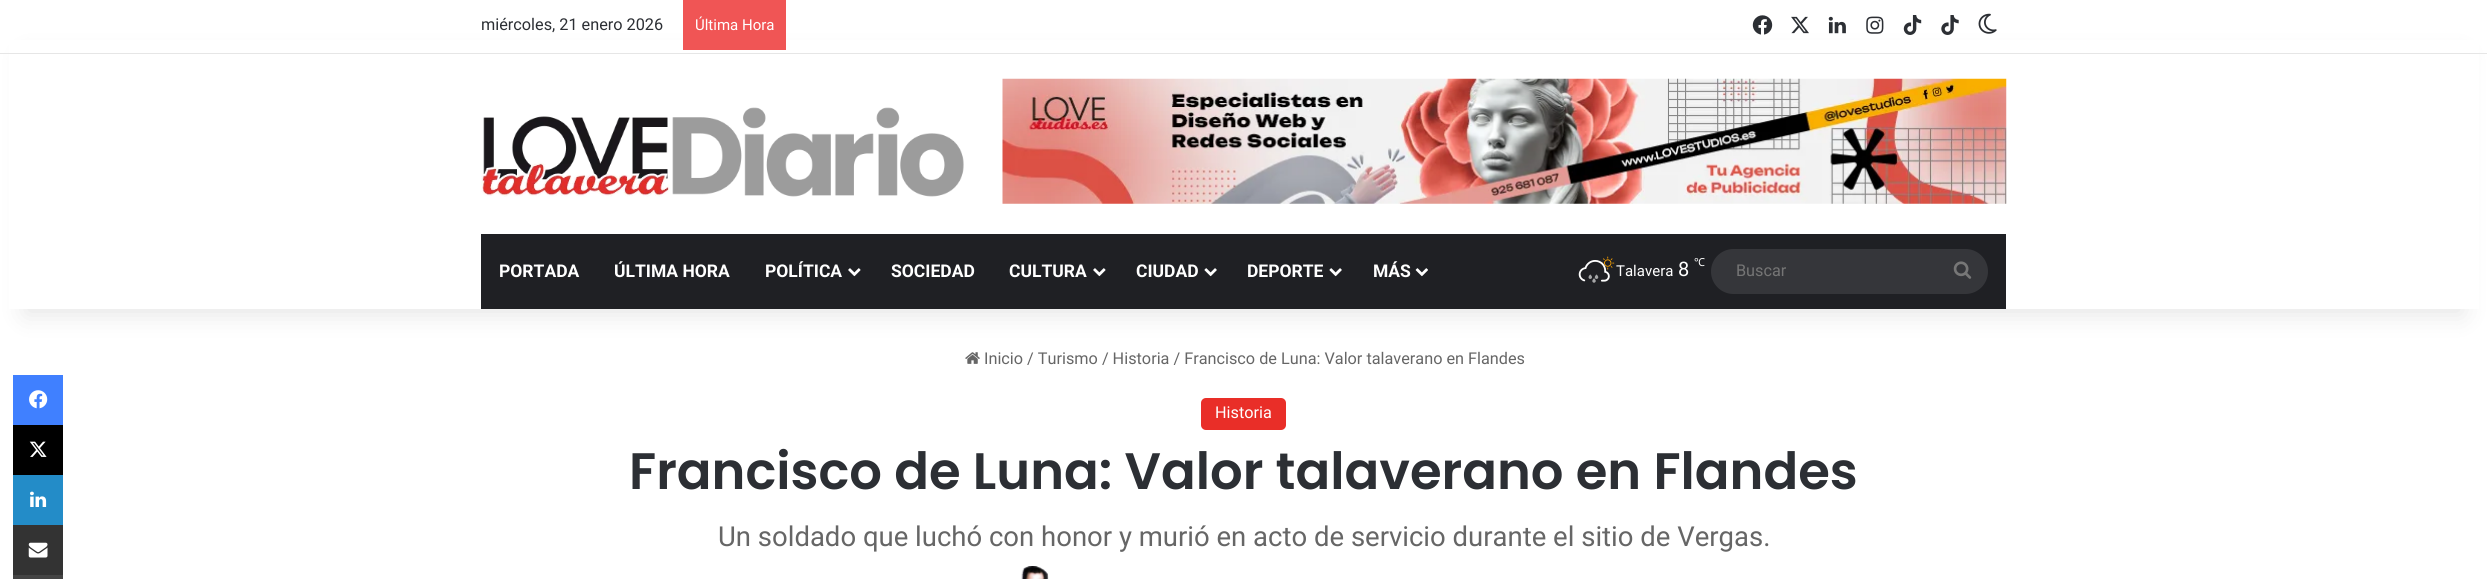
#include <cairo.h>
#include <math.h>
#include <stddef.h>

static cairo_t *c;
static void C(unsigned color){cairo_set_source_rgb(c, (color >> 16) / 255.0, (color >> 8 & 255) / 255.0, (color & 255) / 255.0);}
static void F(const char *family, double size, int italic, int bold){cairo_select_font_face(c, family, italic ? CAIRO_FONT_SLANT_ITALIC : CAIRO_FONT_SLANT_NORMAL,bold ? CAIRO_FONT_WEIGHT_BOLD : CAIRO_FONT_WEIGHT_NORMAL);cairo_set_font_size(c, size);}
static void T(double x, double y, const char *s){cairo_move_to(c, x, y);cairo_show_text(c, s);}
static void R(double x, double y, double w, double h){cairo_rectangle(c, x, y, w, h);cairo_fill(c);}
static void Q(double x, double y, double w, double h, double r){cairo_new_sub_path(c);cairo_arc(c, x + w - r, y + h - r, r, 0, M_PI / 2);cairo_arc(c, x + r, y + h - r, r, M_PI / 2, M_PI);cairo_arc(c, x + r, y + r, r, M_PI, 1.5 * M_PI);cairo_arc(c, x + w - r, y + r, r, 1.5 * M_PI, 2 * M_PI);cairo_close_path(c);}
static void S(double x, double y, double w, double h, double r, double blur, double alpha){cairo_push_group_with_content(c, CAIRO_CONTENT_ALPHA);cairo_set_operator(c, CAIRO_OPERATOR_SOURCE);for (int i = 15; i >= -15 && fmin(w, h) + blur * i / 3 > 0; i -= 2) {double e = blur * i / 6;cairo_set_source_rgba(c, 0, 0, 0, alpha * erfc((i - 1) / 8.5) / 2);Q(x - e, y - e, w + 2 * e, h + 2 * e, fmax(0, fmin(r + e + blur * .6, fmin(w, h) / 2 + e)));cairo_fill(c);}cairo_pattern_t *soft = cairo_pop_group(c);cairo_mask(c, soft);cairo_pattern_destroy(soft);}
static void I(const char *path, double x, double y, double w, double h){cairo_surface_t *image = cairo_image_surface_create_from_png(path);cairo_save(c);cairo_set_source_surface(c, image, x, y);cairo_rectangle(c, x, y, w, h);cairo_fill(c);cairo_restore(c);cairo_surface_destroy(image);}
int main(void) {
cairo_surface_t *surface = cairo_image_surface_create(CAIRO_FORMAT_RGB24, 2487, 579);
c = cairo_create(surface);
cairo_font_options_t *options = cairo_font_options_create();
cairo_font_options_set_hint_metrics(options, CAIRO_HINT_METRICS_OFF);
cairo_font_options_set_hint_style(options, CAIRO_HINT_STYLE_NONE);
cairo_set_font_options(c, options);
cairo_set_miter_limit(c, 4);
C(0xffffff);
cairo_paint(c);
I("24.png",965,352,15,12);
C(0x000000);
S(25,56,2438,259,0,12.5,.1);
C(0xffffff);
R(9,40,2470,269);
C(0xe6e6e6);
R(0,53,2487,1);
F("Roboto",16.25,0,0);
C(0x2c2f34);
T(481,30,"miércoles, 21 enero 2026");
C(0xf05555);
R(683,0,103,50);
F("Roboto",15,0,0);
C(0xffffff);
T(695,30,"Última Hora");
I("1.png",1752,15,21,20);
I("2.png",1791,16,18,18);
I("3.png",1828,16,18,18);
I("4.png",1866,16,18,18);
I("5.png",1903,15,19,20);
I("6.png",1941,15,18,20);
I("7.png",1978,13,19,21);
I("8.png",481,107,483,90);
I("9.png",1002,78,1005,126);
C(0x1f2024);
R(481,234,1525,75);
F("Roboto",17.5,0,1);
C(0xffffff);
T(499,277,"PORTADA");
T(614,277,"ÚLTIMA HORA");
T(765,277,"POLÍTICA");
I("10.png",848,268,13,9);
T(891,277,"SOCIEDAD");
T(1009,277,"CULTURA");
I("10.png",1093,268,13,9);
T(1136,277,"CIUDAD");
I("11.png",1204,268,13,9);
T(1247,277,"DEPORTE");
I("11.png",1329,268,13,9);
T(1373,277,"MÁS");
I("12.png",1415,268,13,9);
I("13.png",1601,256,14,14);
I("15.png",1601,262,4,6);
I("14.png",1578,260,32,22);
I("16.png",1588,274,4,5);
I("17.png",1594,274,5,5);
I("18.png",1592,278,4,5);
F("Roboto",15,0,0);
T(1616,276,"Talavera");
F("Roboto",20,0,0);
T(1678,276,"8");
F("Noto Sans",11,0,0);
T(1694,266,"℃");
C(0x35363a);
Q(1711,249,277,45,22.5);
cairo_fill(c);
F("Roboto",16.25,0,0);
C(0x757575);
T(1736,276,"Buscar");
I("19.png",1953,261,19,18);
C(0x4080ff);
R(13,375,50,50);
I("20.png",29,390,19,19);
C(0x000000);
R(13,425,50,50);
I("21.png",29,441,18,16);
C(0x238cc8);
R(13,475,50,50);
I("22.png",30,491,17,16);
C(0x333333);
R(13,525,50,50);
I("23.png",28,542,20,16);
C(0x444444);
R(13,575,50,4);
C(0x666666);
T(984,364,"Inicio / Turismo / Historia / Francisco de Luna: Valor talaverano en Flandes");
C(0xe92e28);
Q(1201,398,85,32,5);
cairo_fill(c);
C(0xffffff);
T(1215,418,"Historia");
F("Poppins SemiBold",51.25,0,0);
C(0x2c2f34);
T(629,489,"Francisco de Luna: Valor talaverano en Flandes");
F("Roboto",27.5,0,0);
C(0x666666);
T(718,546,"Un soldado que luchó con honor y murió en acto de servicio durante el sitio de Vergas.");
I("25.png",1021,566,28,13);
cairo_surface_write_to_png(surface, "o.png");
cairo_font_options_destroy(options);
cairo_destroy(c);
cairo_surface_destroy(surface);
return 0;
}
